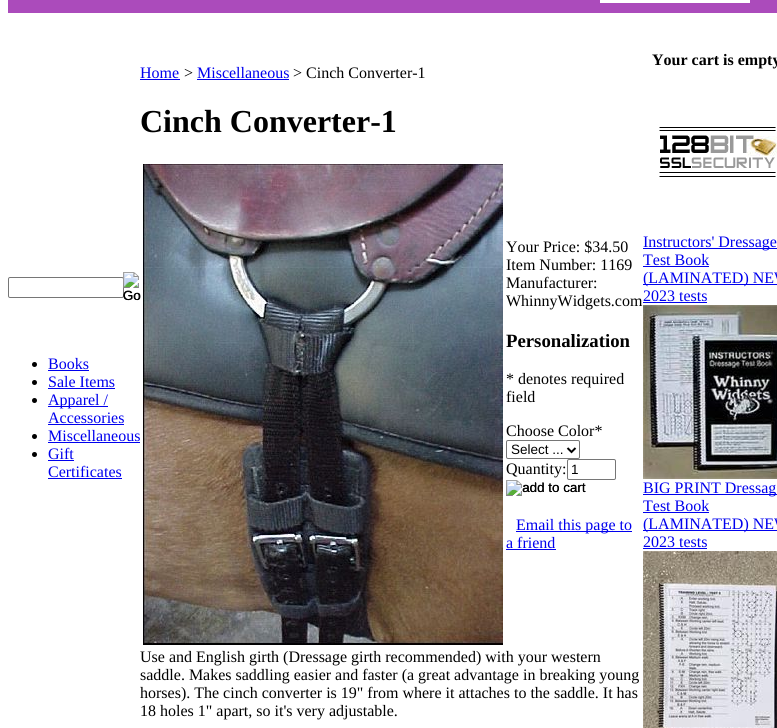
#include <cairo.h>
#include <math.h>
#include <stddef.h>

static cairo_t *c;
static void C(unsigned color){cairo_set_source_rgb(c, (color >> 16) / 255.0, (color >> 8 & 255) / 255.0, (color & 255) / 255.0);}
static void F(const char *family, double size, int italic, int bold){cairo_select_font_face(c, family, italic ? CAIRO_FONT_SLANT_ITALIC : CAIRO_FONT_SLANT_NORMAL,bold ? CAIRO_FONT_WEIGHT_BOLD : CAIRO_FONT_WEIGHT_NORMAL);cairo_set_font_size(c, size);}
static void T(double x, double y, const char *s){cairo_move_to(c, x, y);cairo_show_text(c, s);}
static void R(double x, double y, double w, double h){cairo_rectangle(c, x, y, w, h);cairo_fill(c);}
static void Q(double x, double y, double w, double h, double r){cairo_new_sub_path(c);cairo_arc(c, x + w - r, y + h - r, r, 0, M_PI / 2);cairo_arc(c, x + r, y + h - r, r, M_PI / 2, M_PI);cairo_arc(c, x + r, y + r, r, M_PI, 1.5 * M_PI);cairo_arc(c, x + w - r, y + r, r, 1.5 * M_PI, 2 * M_PI);cairo_close_path(c);}
static void I(const char *path, double x, double y, double w, double h){cairo_surface_t *image = cairo_image_surface_create_from_png(path);cairo_save(c);cairo_set_source_surface(c, image, x, y);cairo_rectangle(c, x, y, w, h);cairo_fill(c);cairo_restore(c);cairo_surface_destroy(image);}
int main(void) {
cairo_surface_t *surface = cairo_image_surface_create(CAIRO_FORMAT_RGB24, 777, 728);
c = cairo_create(surface);
cairo_font_options_t *options = cairo_font_options_create();
cairo_font_options_set_hint_metrics(options, CAIRO_HINT_METRICS_OFF);
cairo_font_options_set_hint_style(options, CAIRO_HINT_STYLE_NONE);
cairo_set_font_options(c, options);
cairo_set_miter_limit(c, 4);
C(0xffffff);
cairo_paint(c);
C(0xab4bbb);
R(8,0,769,13);
C(0xffffff);
R(600,0,150,3);
Q(8.5,277.5,115,20,1.5);
C(0x767676);
cairo_set_line_width(c,1);
cairo_stroke(c);
I("1.png",123,272,17,28);
F("Liberation Sans",13.5,0,0);
C(0x000000);
T(123,300,"Go");
cairo_new_path(c);
cairo_arc(c,34.5,364.5,2.5,0,2 * M_PI);
cairo_fill(c);
F("Liberation Serif",16,0,0);
C(0x0000ee);
T(48,369,"Books");
R(48,370,41,1);
C(0x000000);
cairo_new_path(c);
cairo_arc(c,34.5,382.5,2.5,0,2 * M_PI);
cairo_fill(c);
C(0x0000ee);
T(48,387,"Sale Items");
R(48,388,67,1);
C(0x000000);
cairo_new_path(c);
cairo_arc(c,34.5,400.5,2.5,0,2 * M_PI);
cairo_fill(c);
C(0x0000ee);
R(48,406,60,1);
T(48,405,"Apparel /");
T(48,423,"Accessories");
R(48,424,76,1);
C(0x000000);
cairo_new_path(c);
cairo_arc(c,34.5,436.5,2.5,0,2 * M_PI);
cairo_fill(c);
C(0x0000ee);
T(48,441,"Miscellaneous");
R(48,442,92,1);
C(0x000000);
cairo_new_path(c);
cairo_arc(c,34.5,454.5,2.5,0,2 * M_PI);
cairo_fill(c);
C(0x0000ee);
T(48,459,"Gift");
R(48,460,26,1);
T(48,477,"Certificates");
R(48,478,74,1);
T(140,78,"Home");
R(140,79,40,1);
C(0x000000);
T(184,78,">");
C(0x0000ee);
T(197,78,"Miscellaneous");
R(197,79,92,1);
C(0x000000);
T(293,78,"> Cinch Converter-1");
F("Liberation Serif",32,0,1);
T(140,132,"Cinch Converter-1");
I("2.png",143,164,360,481);
F("Liberation Serif",16,0,0);
T(506,252,"Your Price: $34.50");
T(506,270,"Item Number: 1169");
T(506,288,"Manufacturer:");
T(506,306,"WhinnyWidgets.com");
F("Liberation Serif",18.75,0,1);
T(506,347,"Personalization");
F("Liberation Serif",16,0,0);
T(506,384,"* denotes required");
T(506,402,"field");
T(506,436,"Choose Color*");
Q(506.5,440.5,73,18,1.5);
C(0x767676);
cairo_stroke(c);
cairo_new_path(c);
cairo_move_to(c,567.5,448);
cairo_line_to(c,571.5,452);
cairo_line_to(c,575.5,448);
C(0x000000);
cairo_set_line_width(c,2);
cairo_stroke(c);
F("Liberation Sans",13.5,0,0);
T(511,454,"Select ...");
F("Liberation Serif",16,0,0);
T(506,474,"Quantity:");
Q(567.5,459.5,48,20,1.5);
C(0x767676);
cairo_set_line_width(c,1);
cairo_stroke(c);
F("Liberation Sans",13.5,0,0);
C(0x000000);
T(571,474,"1");
I("3.png",506,480,79,16);
T(522,492,"add to cart");
C(0x0000ee);
R(516,531,116,1);
F("Liberation Serif",16,0,0);
T(516,530,"Email this page to");
T(506,548,"a friend");
R(506,549,50,1);
C(0x000000);
T(140,662,"Use and English girth (Dressage girth recommended) with your western");
T(140,680,"saddle. Makes saddling easier and faster (a great advantage in breaking young");
T(140,698,"horses). The cinch converter is 19\" from where it attaches to the saddle. It has");
T(140,716,"18 holes 1\" apart, so it's very adjustable.");
F("Liberation Serif",16,0,1);
T(652,65,"Your cart is empty");
I("4.png",659,127,118,50);
C(0x0000ee);
R(643,248,134,1);
F("Liberation Serif",16,0,0);
T(643,247,"Instructors' Dressage");
T(643,265,"Test Book");
R(643,266,66,1);
R(643,284,134,1);
T(643,283,"(LAMINATED) NEW");
T(643,301,"2023 tests");
R(643,302,64,1);
I("5.png",643,305,134,174);
R(643,494,134,1);
T(643,493,"BIG PRINT Dressag");
T(643,511,"Test Book");
R(643,512,66,1);
R(643,530,134,1);
T(643,529,"(LAMINATED) NEW");
T(643,547,"2023 tests");
R(643,548,64,1);
I("6.png",643,551,134,177);
cairo_surface_write_to_png(surface, "o.png");
cairo_font_options_destroy(options);
cairo_destroy(c);
cairo_surface_destroy(surface);
return 0;
}
